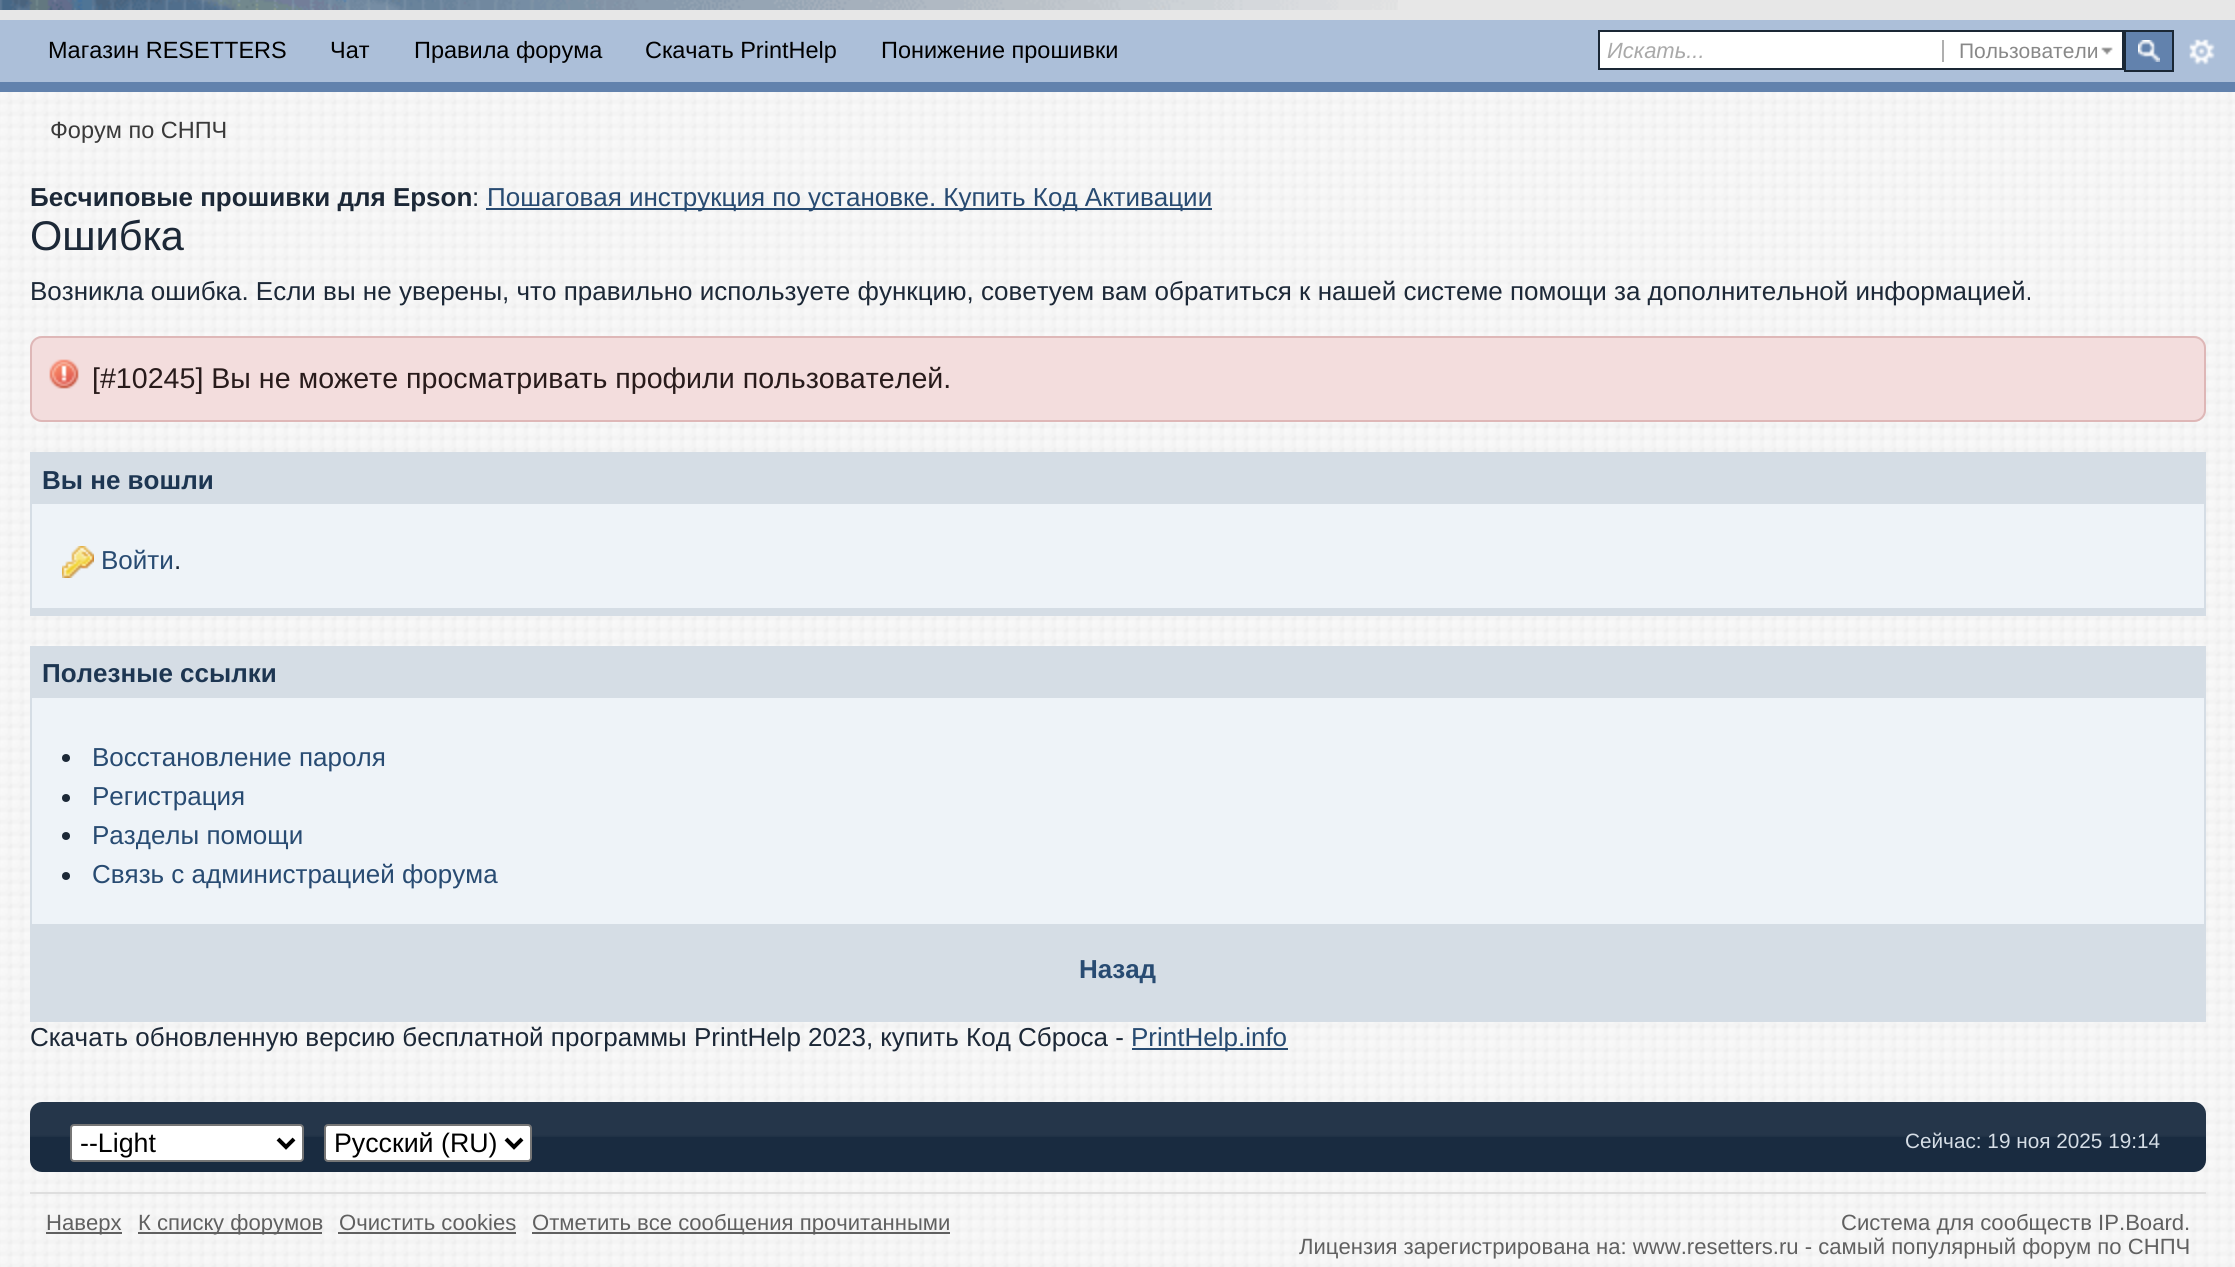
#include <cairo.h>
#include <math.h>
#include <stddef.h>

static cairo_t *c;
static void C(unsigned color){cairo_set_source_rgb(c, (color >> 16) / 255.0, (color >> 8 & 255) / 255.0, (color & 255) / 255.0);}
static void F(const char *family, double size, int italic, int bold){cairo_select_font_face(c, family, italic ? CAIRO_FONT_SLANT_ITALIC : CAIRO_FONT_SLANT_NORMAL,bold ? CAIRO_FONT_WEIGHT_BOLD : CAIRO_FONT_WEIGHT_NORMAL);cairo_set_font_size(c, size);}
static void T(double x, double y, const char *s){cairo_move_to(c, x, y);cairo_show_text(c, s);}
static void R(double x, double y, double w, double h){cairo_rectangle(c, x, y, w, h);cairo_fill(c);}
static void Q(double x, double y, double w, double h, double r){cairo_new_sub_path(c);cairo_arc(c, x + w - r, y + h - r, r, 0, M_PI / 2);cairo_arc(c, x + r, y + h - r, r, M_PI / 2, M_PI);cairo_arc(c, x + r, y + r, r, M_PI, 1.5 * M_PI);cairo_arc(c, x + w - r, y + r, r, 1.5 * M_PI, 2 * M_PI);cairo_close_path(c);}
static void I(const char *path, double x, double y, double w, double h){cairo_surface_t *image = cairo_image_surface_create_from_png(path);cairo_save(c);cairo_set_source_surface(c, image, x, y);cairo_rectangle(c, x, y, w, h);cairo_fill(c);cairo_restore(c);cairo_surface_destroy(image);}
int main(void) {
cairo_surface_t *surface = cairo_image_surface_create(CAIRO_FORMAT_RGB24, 2235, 1267);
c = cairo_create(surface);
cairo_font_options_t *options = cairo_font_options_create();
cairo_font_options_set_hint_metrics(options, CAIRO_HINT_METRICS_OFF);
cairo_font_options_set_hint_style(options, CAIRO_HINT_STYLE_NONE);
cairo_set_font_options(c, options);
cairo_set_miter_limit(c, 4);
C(0xffffff);
cairo_paint(c);
I("1.png",0,92,2235,1175);
C(0xe7e7e7);
R(0,0,2235,20);
I("2.png",0,0,1398,10);
C(0xacbfd9);
R(0,20,2235,62);
C(0x6282ad);
R(0,82,2235,10);
F("Liberation Sans",23.5,0,0);
C(0x000000);
T(48,58,"Магазин RESETTERS");
T(330,58,"Чат");
T(414,58,"Правила форума");
T(645,58,"Скачать PrintHelp");
T(881,58,"Понижение прошивки");
C(0xffffff);
cairo_rectangle(c,1599,31,524,38);
cairo_fill_preserve(c);
C(0x1a2735);
cairo_stroke(c);
F("Liberation Sans",22,1,0);
C(0xa9a9a9);
T(1607,58,"Искать...");
I("3.png",2101,47,12,8);
C(0xafafaf);
R(1942,40,2,22);
F("Liberation Sans",21,0,0);
C(0x888888);
T(1959,58,"Пользователи");
C(0x6282ad);
R(2126,32,46,38);
I("4.png",2138,40,22,22);
cairo_rectangle(c,2125,31,48,40);
C(0x1a2735);
cairo_stroke(c);
I("5.png",2189,39,26,26);
F("Liberation Sans",23.5,0,0);
C(0x393939);
T(50,138,"Форум по СНПЧ");
F("Liberation Sans",26,0,1);
C(0x1c2837);
T(30,206,"Бесчиповые прошивки для Epson");
F("Liberation Sans",26,0,0);
T(472,206,":");
C(0x284b72);
R(486,208,726,2);
T(487,206,"Пошаговая инструкция по установке. Купить Код Активации");
F("Liberation Sans",41.5,0,0);
C(0x1c2837);
T(30,250,"Ошибка");
F("Liberation Sans",26,0,0);
T(30,300,"Возникла ошибка. Если вы не уверены, что правильно используете функцию, советуем вам обратиться к нашей системе помощи за дополнительной информацией.");
C(0xf3dddd);
Q(30,336,2176,86,12);
cairo_fill(c);
I("6.png",49,359,30,30);
Q(31,337,2174,84,11);
C(0xdeb7b7);
cairo_stroke(c);
F("Liberation Sans",28.6,0,0);
C(0x281b1b);
T(92,388,"[#10245] Вы не можете просматривать профили пользователей.");
C(0xeef3f8);
R(32,504,2172,104);
C(0xd5dde5);
R(30,452,2176,2);
R(2204,452,2,164);
R(30,608,2176,8);
R(30,452,2,164);
R(32,454,2172,50);
F("Liberation Sans",26,0,1);
C(0x1d3652);
T(42,489,"Вы не вошли");
I("7.png",62,546,32,32);
F("Liberation Sans",26,0,0);
C(0x284b72);
T(101,569,"Войти");
C(0x1c2837);
T(174,569,".");
C(0xeef3f8);
R(32,698,2172,226);
C(0xd5dde5);
R(30,646,2176,2);
R(2204,646,2,376);
R(30,1014,2176,8);
R(30,646,2,376);
R(32,648,2172,50);
F("Liberation Sans",26,0,1);
C(0x1d3652);
T(42,682,"Полезные ссылки");
C(0x1c2837);
cairo_new_path(c);
cairo_arc(c,66,758,4,0,2 * M_PI);
cairo_fill(c);
F("Liberation Sans",26,0,0);
C(0x284b72);
T(92,766,"Восстановление пароля");
C(0x1c2837);
cairo_new_path(c);
cairo_arc(c,66,798,4,0,2 * M_PI);
cairo_fill(c);
C(0x284b72);
T(92,805,"Регистрация");
C(0x1c2837);
cairo_new_path(c);
cairo_arc(c,66,836,4,0,2 * M_PI);
cairo_fill(c);
C(0x284b72);
T(92,844,"Разделы помощи");
C(0x1c2837);
cairo_new_path(c);
cairo_arc(c,66,876,4,0,2 * M_PI);
cairo_fill(c);
C(0x284b72);
T(92,883,"Связь с администрацией форума");
C(0xd5dde5);
R(32,924,2172,90);
F("Liberation Sans",26,0,1);
C(0x284b72);
T(1079,978,"Назад");
F("Liberation Sans",26,0,0);
C(0x1c2837);
T(30,1046,"Скачать обновленную версию бесплатной программы PrintHelp 2023, купить Код Сброса -");
C(0x284b72);
R(1132,1048,156,2);
T(1131,1046,"PrintHelp.info");
C(0x192b40);
Q(30,1102,2176,70,12);
cairo_fill(c);
I("8.png",30,1102,2176,35);
C(0xffffff);
Q(71,1125,232,36,3);
cairo_fill_preserve(c);
C(0x767676);
cairo_stroke(c);
cairo_new_path(c);
cairo_move_to(c,278,1139);
cairo_line_to(c,286,1147);
cairo_line_to(c,294,1139);
C(0x000000);
cairo_set_line_width(c,4);
cairo_stroke(c);
F("Liberation Sans",26.75,0,0);
T(80,1152,"--Light");
C(0xffffff);
Q(325,1125,206,36,3);
cairo_fill_preserve(c);
C(0x767676);
cairo_set_line_width(c,2);
cairo_stroke(c);
cairo_new_path(c);
cairo_move_to(c,506,1139);
cairo_line_to(c,514,1147);
cairo_line_to(c,522,1139);
C(0x000000);
cairo_set_line_width(c,4);
cairo_stroke(c);
T(334,1152,"Русский (RU)");
F("Liberation Sans",20.75,0,0);
C(0xd5dde5);
T(1905,1148,"Сейчас: 19 ноя 2025 19:14");
C(0xdedede);
R(30,1192,2176,2);
C(0x606060);
R(46,1232,76,2);
F("Liberation Sans",22.1,0,0);
T(46,1230,"Наверх");
R(138,1232,184,2);
T(138,1230,"К списку форумов");
T(339,1230,"Очистить cookies");
R(338,1232,178,2);
R(532,1232,418,2);
T(532,1230,"Отметить все сообщения прочитанными");
T(1841,1230,"Система для сообществ IP.Board.");
T(1299,1254,"Лицензия зарегистрирована на: www.resetters.ru - самый популярный форум по СНПЧ");
cairo_surface_write_to_png(surface, "o.png");
cairo_font_options_destroy(options);
cairo_destroy(c);
cairo_surface_destroy(surface);
return 0;
}
